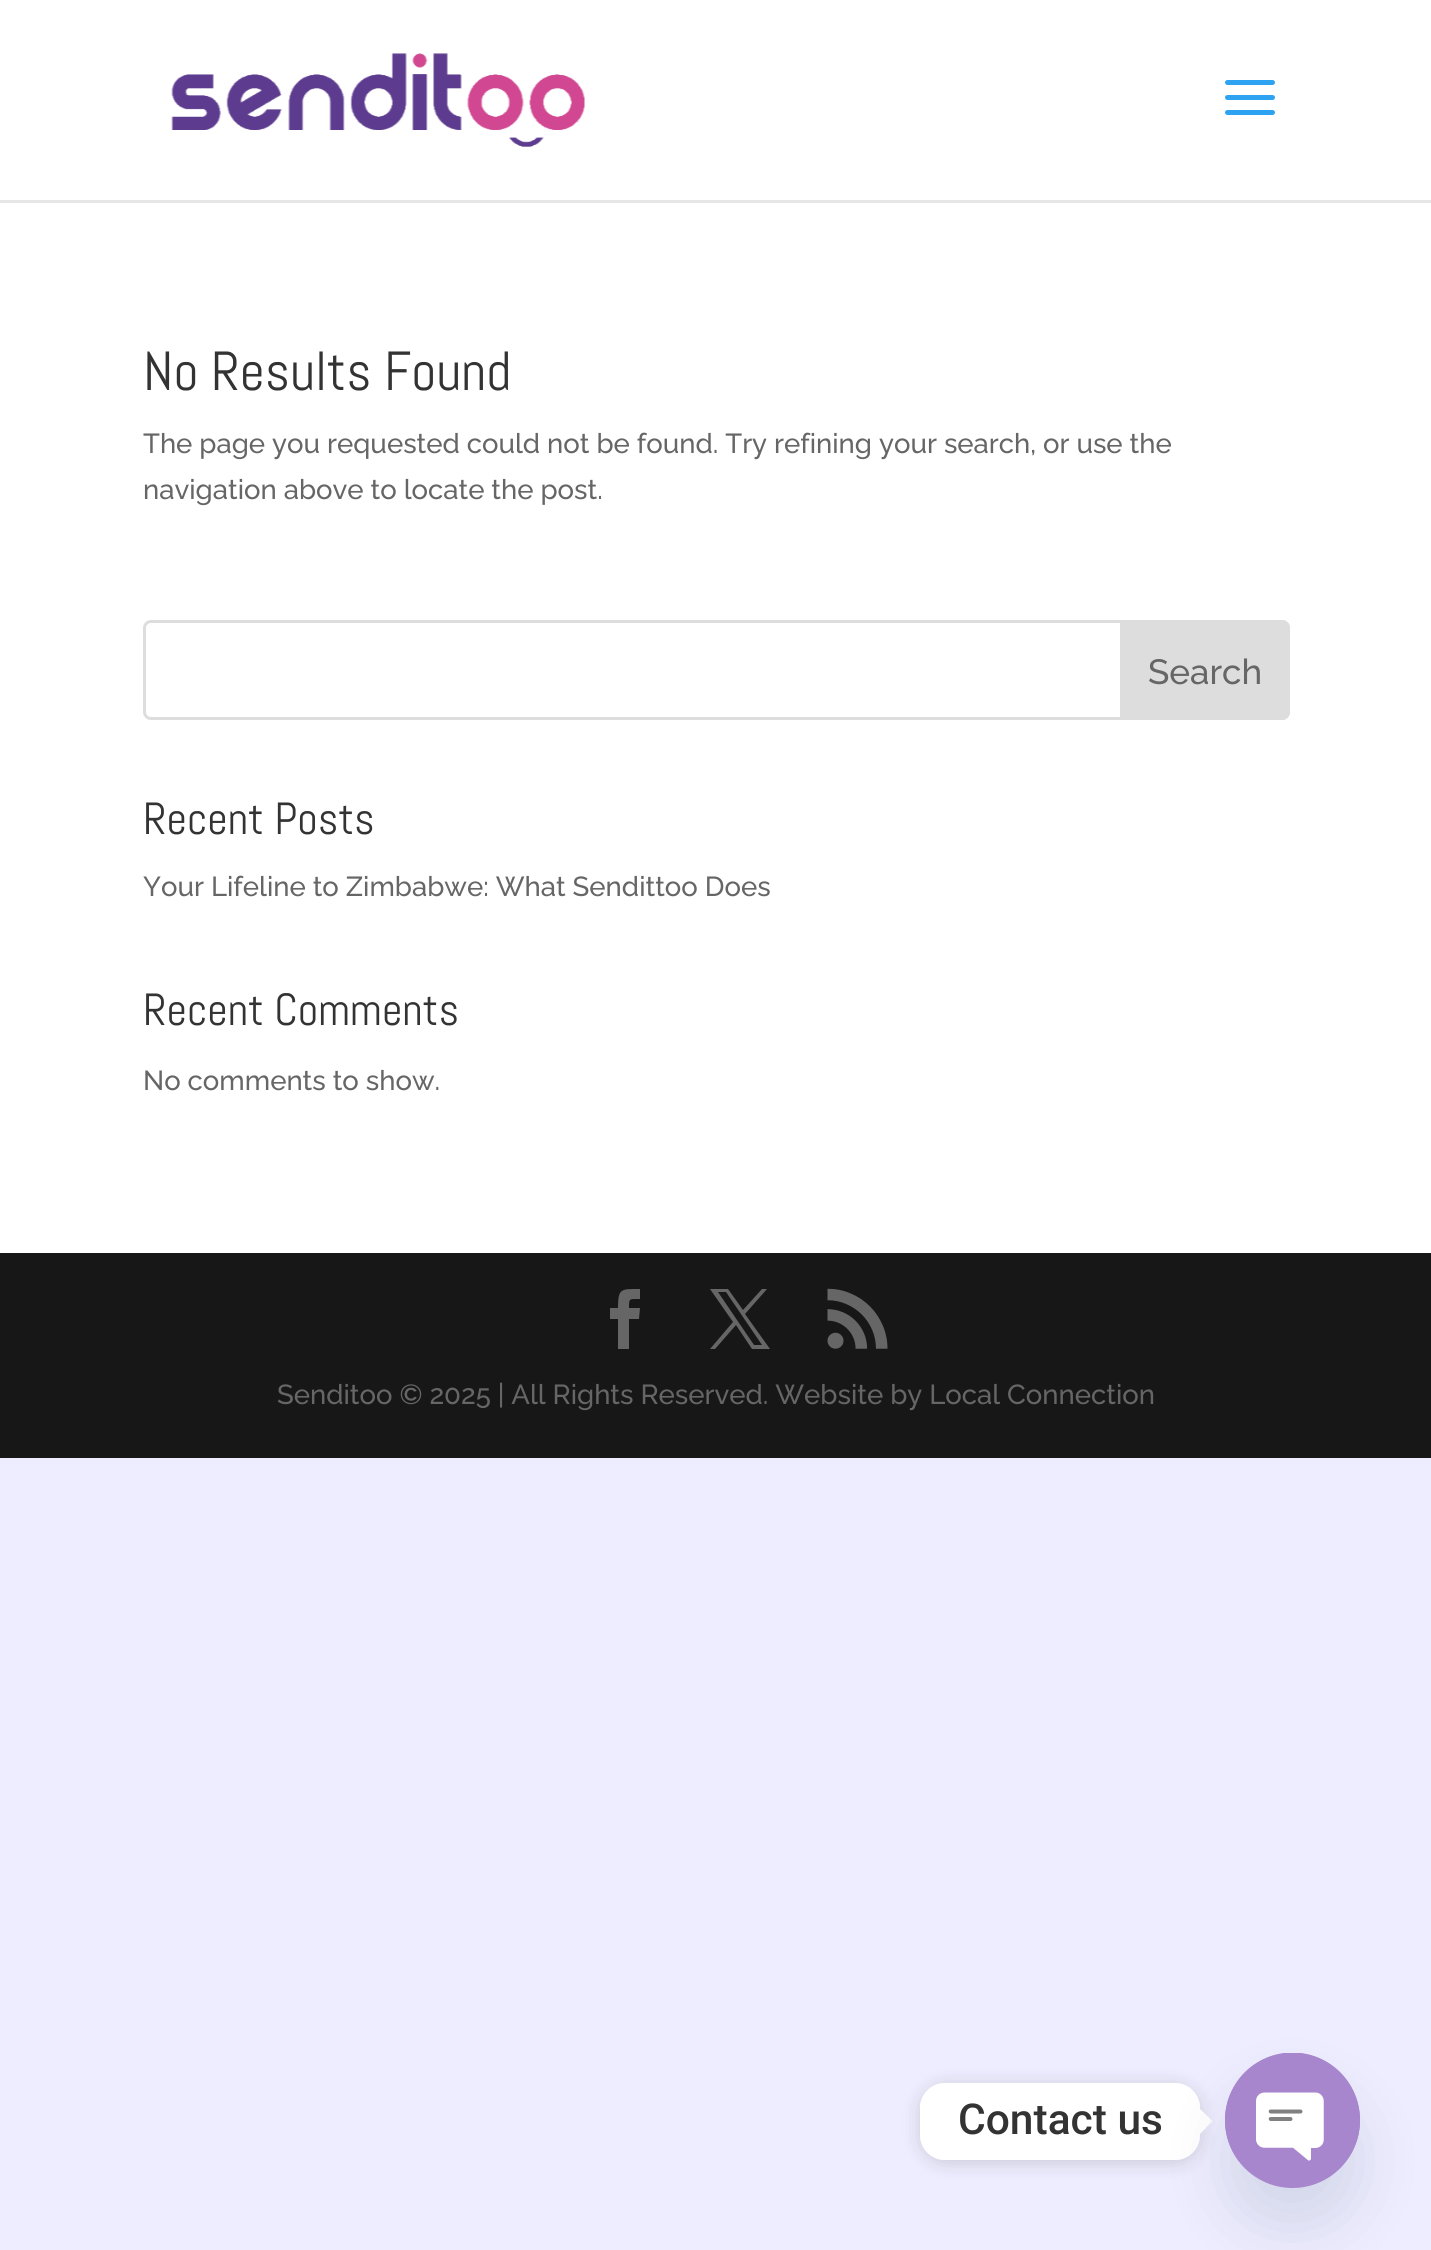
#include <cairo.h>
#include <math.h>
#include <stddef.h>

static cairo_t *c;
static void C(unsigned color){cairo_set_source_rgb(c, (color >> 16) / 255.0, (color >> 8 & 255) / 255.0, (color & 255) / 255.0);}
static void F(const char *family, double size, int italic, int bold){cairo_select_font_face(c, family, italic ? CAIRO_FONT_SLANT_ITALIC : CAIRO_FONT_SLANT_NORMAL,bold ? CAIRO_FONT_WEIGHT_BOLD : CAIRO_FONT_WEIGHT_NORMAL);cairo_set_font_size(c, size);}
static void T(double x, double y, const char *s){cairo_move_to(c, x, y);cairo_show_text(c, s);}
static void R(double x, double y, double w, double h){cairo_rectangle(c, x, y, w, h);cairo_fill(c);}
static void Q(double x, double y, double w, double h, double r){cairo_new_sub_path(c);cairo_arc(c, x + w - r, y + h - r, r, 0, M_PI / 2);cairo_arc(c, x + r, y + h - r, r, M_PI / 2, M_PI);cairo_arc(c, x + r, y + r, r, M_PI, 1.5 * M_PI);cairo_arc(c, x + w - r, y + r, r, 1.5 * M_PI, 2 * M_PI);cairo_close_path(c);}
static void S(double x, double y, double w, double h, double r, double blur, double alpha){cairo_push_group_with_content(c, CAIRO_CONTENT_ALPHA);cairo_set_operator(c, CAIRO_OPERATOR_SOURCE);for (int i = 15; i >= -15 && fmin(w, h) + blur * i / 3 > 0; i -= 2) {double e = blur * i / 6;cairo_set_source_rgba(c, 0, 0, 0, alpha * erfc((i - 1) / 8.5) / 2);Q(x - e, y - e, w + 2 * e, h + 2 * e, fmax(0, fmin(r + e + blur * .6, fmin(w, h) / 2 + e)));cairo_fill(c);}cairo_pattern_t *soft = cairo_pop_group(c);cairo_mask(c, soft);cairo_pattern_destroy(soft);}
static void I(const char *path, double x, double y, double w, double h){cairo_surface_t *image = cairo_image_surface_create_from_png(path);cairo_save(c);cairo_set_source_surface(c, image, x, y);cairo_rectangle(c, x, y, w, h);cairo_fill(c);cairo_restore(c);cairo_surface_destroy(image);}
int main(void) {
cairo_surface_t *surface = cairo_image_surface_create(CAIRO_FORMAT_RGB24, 1431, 2250);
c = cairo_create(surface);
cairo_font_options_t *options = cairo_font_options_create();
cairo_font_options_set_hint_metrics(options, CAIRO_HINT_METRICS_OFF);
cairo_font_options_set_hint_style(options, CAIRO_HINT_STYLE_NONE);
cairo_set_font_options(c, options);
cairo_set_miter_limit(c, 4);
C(0xeeedff);
cairo_paint(c);
C(0xe6e6e6);
cairo_new_path(c);
cairo_move_to(c,0,200);
cairo_line_to(c,0,203);
cairo_line_to(c,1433,203);
cairo_line_to(c,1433,3);
cairo_line_to(c,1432,3);
cairo_line_to(c,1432,200);
cairo_close_path(c);
cairo_fill(c);
C(0xffffff);
R(0,0,1431,200);
I("1.png",171,53,414,94);
I("2.png",1225,80,50,35);
R(0,203,1431,1050);
F("Abel",55,0,0);
C(0x333333);
T(143,390,"No Results Found");
F("Raleway Medium",27.5,0,0);
C(0x666666);
T(143,453,"The page you requested could not be found. Try refining your search, or use the");
T(143,499,"navigation above to locate the post.");
Q(144.5,621.5,1144,97,6.5);
C(0xdddddd);
cairo_set_line_width(c,3);
cairo_stroke(c);
cairo_new_path(c);
cairo_move_to(c,1121.5,621.5);
cairo_line_to(c,1282,621.5);
cairo_curve_to(c,1285.5,621.5,1288.5,624.5,1288.5,628);
cairo_line_to(c,1288.5,712);
cairo_curve_to(c,1288.5,715.5,1285.5,718.5,1282,718.5);
cairo_line_to(c,1121.5,718.5);
cairo_close_path(c);
cairo_fill_preserve(c);
cairo_stroke(c);
F("Raleway Medium",35,0,0);
C(0x666666);
T(1148,684,"Search");
F("Abel",45,0,0);
C(0x333333);
T(143,834,"Recent Posts");
F("Raleway Medium",27.5,0,0);
C(0x666666);
T(143,896,"Your Lifeline to Zimbabwe: What Sendittoo Does");
F("Abel",45,0,0);
C(0x333333);
T(143,1025,"Recent Comments");
F("Raleway Medium",27.5,0,0);
C(0x666666);
T(143,1090,"No comments to show.");
C(0x171717);
R(0,1253,1431,205);
C(0x666666);
cairo_new_path(c);
cairo_move_to(c,618,1349);
cairo_line_to(c,629,1349);
cairo_line_to(c,629,1319);
cairo_line_to(c,639,1319);
cairo_line_to(c,640,1308);
cairo_line_to(c,629,1308);
cairo_curve_to(c,629,1298,629,1299,640,1299);
cairo_line_to(c,640,1289);
cairo_curve_to(c,621,1289,618,1288,618,1308);
cairo_line_to(c,610,1308);
cairo_line_to(c,610,1319);
cairo_line_to(c,618,1319);
cairo_close_path(c);
cairo_fill(c);
cairo_new_path(c);
cairo_move_to(c,710,1289);
cairo_line_to(c,733,1322);
cairo_line_to(c,710,1349);
cairo_line_to(c,715,1349);
cairo_line_to(c,736,1325);
cairo_line_to(c,752,1349);
cairo_line_to(c,770,1349);
cairo_line_to(c,745,1314);
cairo_line_to(c,767,1289);
cairo_line_to(c,762,1289);
cairo_line_to(c,743,1310);
cairo_line_to(c,728,1289);
cairo_close_path(c);
cairo_move_to(c,718,1292);
cairo_line_to(c,726,1292);
cairo_line_to(c,762,1345);
cairo_line_to(c,754,1345);
cairo_close_path(c);
cairo_fill(c);
I("3.png",827,1288,61,61);
T(277,1404,"Senditoo © 2025 | All Rights Reserved. Website by Local Connection");
cairo_save(c);
cairo_set_fill_rule(c,CAIRO_FILL_RULE_EVEN_ODD);
cairo_new_path(c);
cairo_move_to(c,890,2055);
cairo_line_to(c,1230,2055);
cairo_line_to(c,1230,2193);
cairo_line_to(c,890,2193);
cairo_close_path(c);
cairo_move_to(c,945,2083);
cairo_line_to(c,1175,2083);
cairo_curve_to(c,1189,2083,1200,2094,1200,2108);
cairo_line_to(c,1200,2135);
cairo_curve_to(c,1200,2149,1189,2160,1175,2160);
cairo_line_to(c,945,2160);
cairo_curve_to(c,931,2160,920,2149,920,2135);
cairo_line_to(c,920,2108);
cairo_curve_to(c,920,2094,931,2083,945,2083);
cairo_close_path(c);
cairo_clip(c);
C(0x000000);
S(920,2085,280,78,25,9.5,.15);
cairo_restore(c);
C(0xffffff);
Q(920,2083,280,77,25);
cairo_fill(c);
F("Roboto Medium",42.5,0,0);
C(0x333333);
T(958,2134,"Contact us");
C(0xffffff);
cairo_new_path(c);
cairo_move_to(c,1200,2134);
cairo_line_to(c,1200,2109);
cairo_line_to(c,1212.5,2121);
cairo_close_path(c);
cairo_fill(c);
C(0x49687e);
S(1225,2093,135,135,67.5,30,.16);
C(0xa886cd);
cairo_arc(c,1292.5,2120.5,67.5,0,2 * M_PI);
cairo_fill(c);
I("4.png",1225,2053,135,108);
cairo_surface_write_to_png(surface, "o.png");
cairo_font_options_destroy(options);
cairo_destroy(c);
cairo_surface_destroy(surface);
return 0;
}
